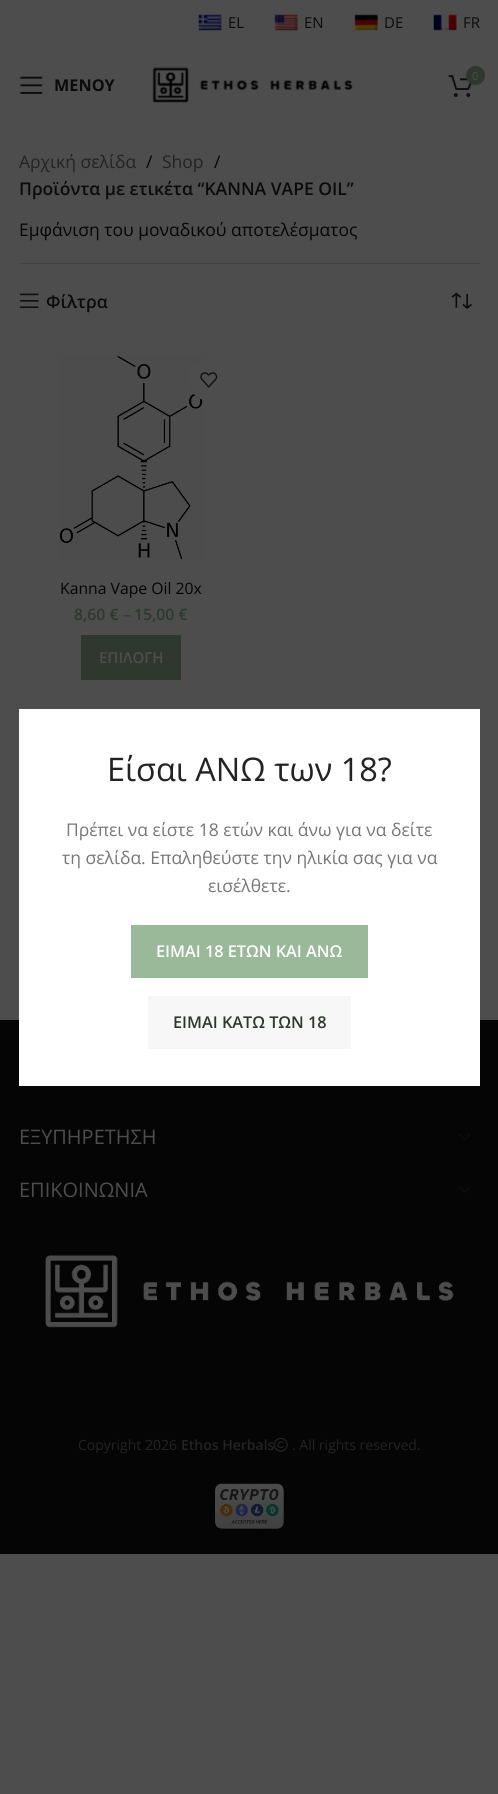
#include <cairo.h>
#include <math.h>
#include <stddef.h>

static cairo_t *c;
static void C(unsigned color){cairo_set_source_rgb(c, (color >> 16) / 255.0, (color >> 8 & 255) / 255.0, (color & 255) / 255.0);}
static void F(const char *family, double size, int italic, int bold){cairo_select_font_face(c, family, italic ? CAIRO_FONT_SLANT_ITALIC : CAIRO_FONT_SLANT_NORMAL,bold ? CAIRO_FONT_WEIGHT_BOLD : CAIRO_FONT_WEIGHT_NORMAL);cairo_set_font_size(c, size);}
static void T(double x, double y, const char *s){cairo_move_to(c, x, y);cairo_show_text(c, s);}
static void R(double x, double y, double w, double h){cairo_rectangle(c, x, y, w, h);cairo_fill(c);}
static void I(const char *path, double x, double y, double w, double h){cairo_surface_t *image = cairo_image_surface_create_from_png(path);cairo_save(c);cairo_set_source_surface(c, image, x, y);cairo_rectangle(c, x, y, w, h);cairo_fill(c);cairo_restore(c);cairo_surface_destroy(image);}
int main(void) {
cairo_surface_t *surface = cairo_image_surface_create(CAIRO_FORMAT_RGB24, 498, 1794);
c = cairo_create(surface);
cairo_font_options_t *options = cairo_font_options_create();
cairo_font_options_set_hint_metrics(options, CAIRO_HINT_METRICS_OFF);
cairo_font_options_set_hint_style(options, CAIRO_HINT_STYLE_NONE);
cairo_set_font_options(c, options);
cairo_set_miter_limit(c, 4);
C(0x4d4d4d);
cairo_paint(c);
I("1.png",198,14,24,17);
F("Open Sans",15,0,0);
C(0x0b0b0b);
T(228,28,"EL");
I("2.png",274,14,24,17);
T(304,28,"EN");
I("3.png",354,14,24,17);
T(384,28,"DE");
I("4.png",433,14,24,17);
T(463,28,"FR");
I("5.png",152,66,201,37);
I("6.png",448,75,24,22);
C(0x2e382e);
cairo_arc(c,475.5,75.5,9.5,0,2 * M_PI);
cairo_fill(c);
F("Open Sans",11,0,0);
C(0x4d4d4d);
T(472,80,"0");
I("7.png",20,76,23,18);
F("Open Sans",16.25,0,1);
C(0x0b0b0b);
T(54,91,"ΜΕΝΟΥ");
C(0x444444);
R(19,263,461,1);
F("Open Sans",17.5,0,0);
C(0x232323);
T(19,168,"Αρχική σελίδα");
C(0x050505);
T(146,168,"/");
C(0x232323);
T(162,168,"Shop");
C(0x050505);
T(214,168,"/");
F("Open Sans SemiBold",17.5,0,0);
C(0x0b0b0b);
T(19,195,"Προϊόντα με ετικέτα “KANNA VAPE OIL”");
F("Open Sans",17.5,0,0);
C(0x050505);
T(19,236,"Εμφάνιση του μοναδικού αποτελέσματος");
I("8.png",20,293,19,16);
F("Open Sans SemiBold",17.5,0,0);
C(0x0b0b0b);
T(46,308,"Φίλτρα");
I("9.png",451,292,21,17);
I("10.png",59,356,144,204);
C(0x4d4d4d);
cairo_arc(c,209.5,379.5,21.5,0,2 * M_PI);
cairo_fill(c);
I("11.png",200,372,18,16);
F("Open Sans",15.75,0,0);
C(0x050505);
T(60,594,"Kanna Vape Oil 20x");
F("Open Sans SemiBold",15.75,0,0);
C(0x2e382e);
T(74,620,"8,60 €");
F("Open Sans",15.75,0,0);
T(123,620,"–");
F("Open Sans SemiBold",15.75,0,0);
T(134,620,"15,00 €");
R(81,635,100,45);
F("Open Sans SemiBold",15,0,0);
C(0x4d4d4d);
T(99,663,"ΕΠΙΛΟΓΗ");
C(0x050505);
R(0,1020,498,534);
I("12.png",464,1086,1,1);
F("Open Sans",20,0,0);
C(0x4d4d4d);
T(19,1144,"ΕΞΥΠΗΡΕΤΗΣΗ");
I("13.png",459,1134,12,6);
T(19,1197,"ΕΠΙΚΟΙΝΩΝΙΑ");
I("14.png",459,1186,11,7);
I("15.png",45,1255,409,73);
F("Open Sans",14,0,0);
C(0x232323);
T(78,1450,"Copyright 2026");
F("Open Sans SemiBold",14,0,0);
T(181,1450,"Ethos Herbals");
I("16.png",273,1437,15,15);
F("Open Sans",14,0,0);
T(292,1450,". All rights reserved.");
I("17.png",215,1483,69,46);
C(0xffffff);
R(19,709,461,377);
F("Open Sans",32.5,0,0);
C(0x232323);
T(107,781,"Είσαι ΑΝΩ των 18?");
F("Open Sans",17.5,0,0);
C(0x767676);
T(66,836,"Πρέπει να είστε 18 ετών και άνω για να δείτε");
T(62,864,"τη σελίδα. Επαληθεύστε την ηλικία σας για να");
T(208,892,"εισέλθετε.");
C(0x99b998);
R(131,925,237,53);
F("Open Sans SemiBold",16.25,0,0);
C(0xffffff);
T(156,957,"ΕΙΜΑΙ 18 ΕΤΩΝ ΚΑΙ ΑΝΩ");
C(0xf7f7f7);
R(148,996,203,53);
C(0x2e382e);
T(173,1028,"ΕΙΜΑΙ ΚΑΤΩ ΤΩΝ 18");
cairo_surface_write_to_png(surface, "o.png");
cairo_font_options_destroy(options);
cairo_destroy(c);
cairo_surface_destroy(surface);
return 0;
}
